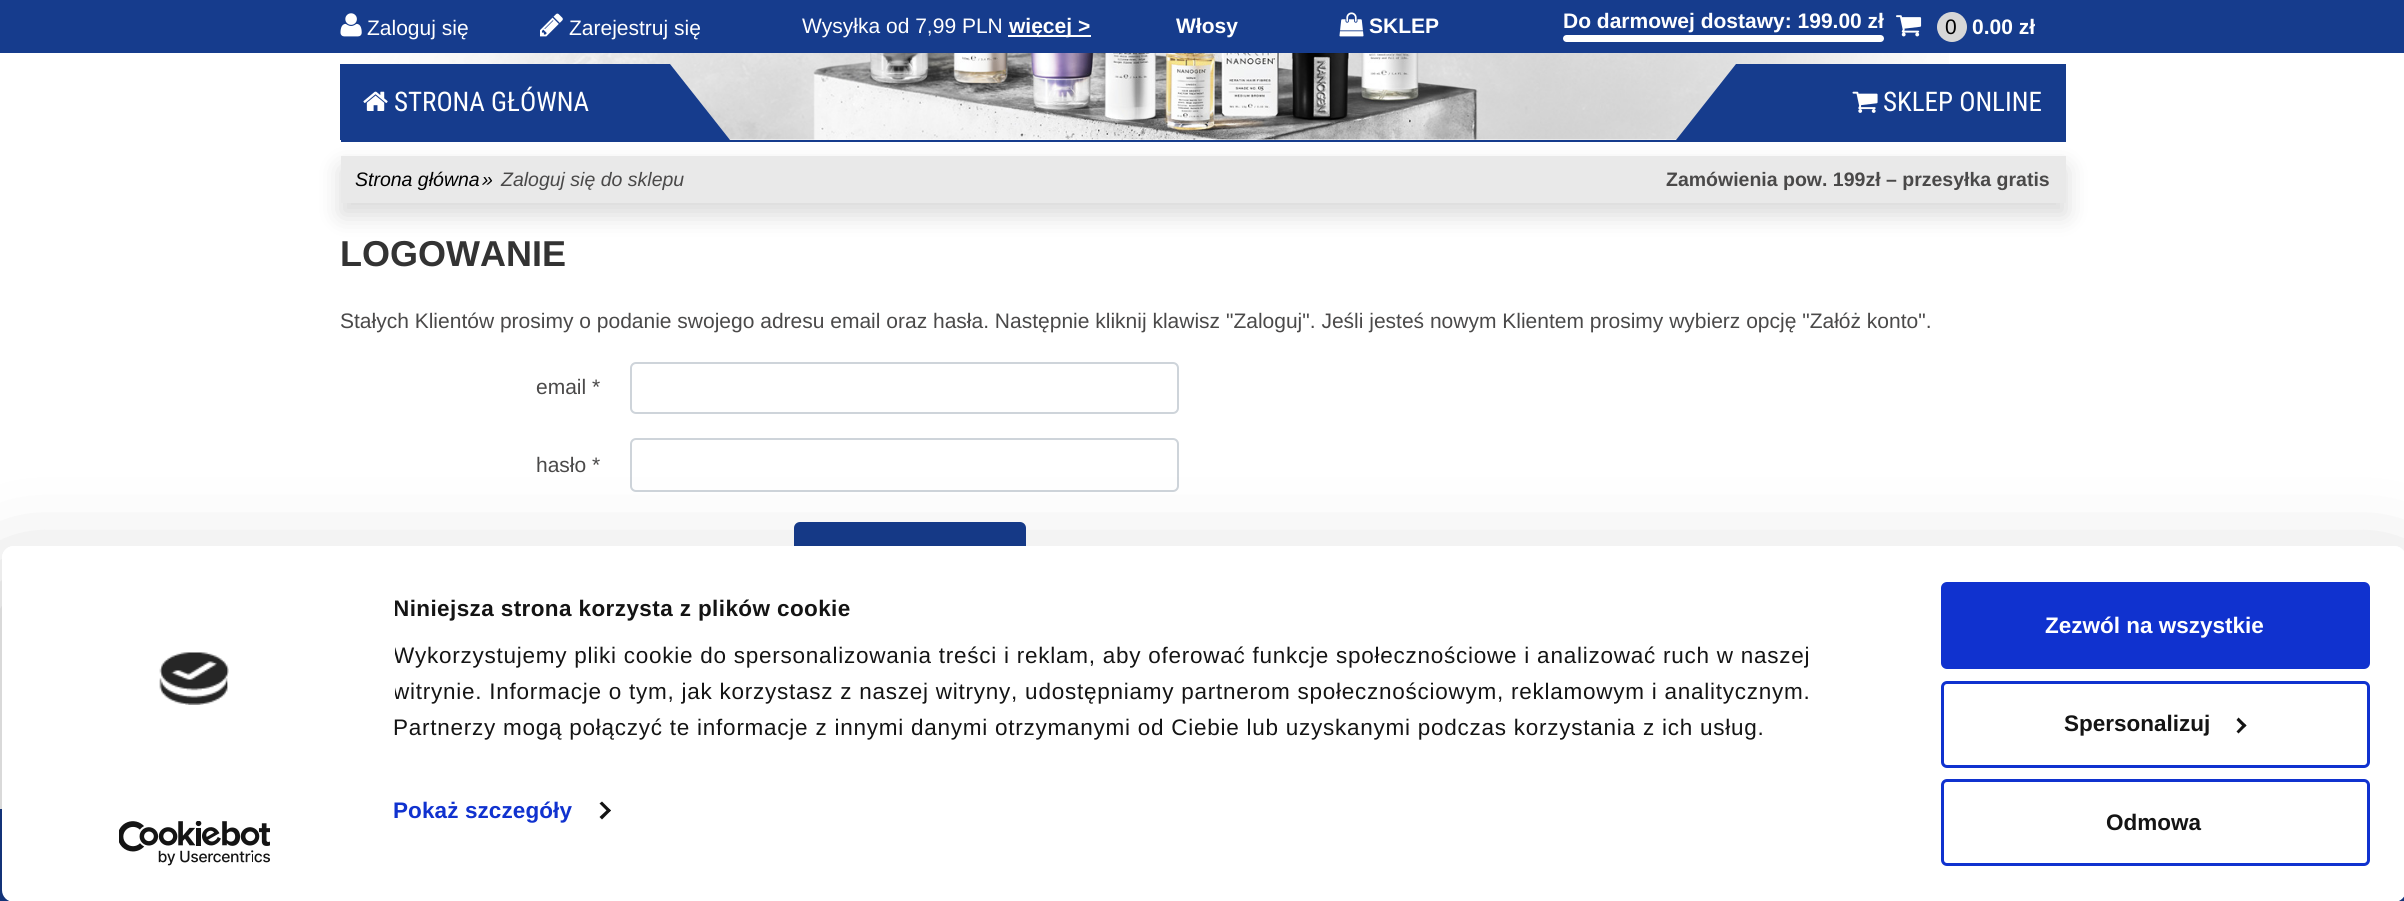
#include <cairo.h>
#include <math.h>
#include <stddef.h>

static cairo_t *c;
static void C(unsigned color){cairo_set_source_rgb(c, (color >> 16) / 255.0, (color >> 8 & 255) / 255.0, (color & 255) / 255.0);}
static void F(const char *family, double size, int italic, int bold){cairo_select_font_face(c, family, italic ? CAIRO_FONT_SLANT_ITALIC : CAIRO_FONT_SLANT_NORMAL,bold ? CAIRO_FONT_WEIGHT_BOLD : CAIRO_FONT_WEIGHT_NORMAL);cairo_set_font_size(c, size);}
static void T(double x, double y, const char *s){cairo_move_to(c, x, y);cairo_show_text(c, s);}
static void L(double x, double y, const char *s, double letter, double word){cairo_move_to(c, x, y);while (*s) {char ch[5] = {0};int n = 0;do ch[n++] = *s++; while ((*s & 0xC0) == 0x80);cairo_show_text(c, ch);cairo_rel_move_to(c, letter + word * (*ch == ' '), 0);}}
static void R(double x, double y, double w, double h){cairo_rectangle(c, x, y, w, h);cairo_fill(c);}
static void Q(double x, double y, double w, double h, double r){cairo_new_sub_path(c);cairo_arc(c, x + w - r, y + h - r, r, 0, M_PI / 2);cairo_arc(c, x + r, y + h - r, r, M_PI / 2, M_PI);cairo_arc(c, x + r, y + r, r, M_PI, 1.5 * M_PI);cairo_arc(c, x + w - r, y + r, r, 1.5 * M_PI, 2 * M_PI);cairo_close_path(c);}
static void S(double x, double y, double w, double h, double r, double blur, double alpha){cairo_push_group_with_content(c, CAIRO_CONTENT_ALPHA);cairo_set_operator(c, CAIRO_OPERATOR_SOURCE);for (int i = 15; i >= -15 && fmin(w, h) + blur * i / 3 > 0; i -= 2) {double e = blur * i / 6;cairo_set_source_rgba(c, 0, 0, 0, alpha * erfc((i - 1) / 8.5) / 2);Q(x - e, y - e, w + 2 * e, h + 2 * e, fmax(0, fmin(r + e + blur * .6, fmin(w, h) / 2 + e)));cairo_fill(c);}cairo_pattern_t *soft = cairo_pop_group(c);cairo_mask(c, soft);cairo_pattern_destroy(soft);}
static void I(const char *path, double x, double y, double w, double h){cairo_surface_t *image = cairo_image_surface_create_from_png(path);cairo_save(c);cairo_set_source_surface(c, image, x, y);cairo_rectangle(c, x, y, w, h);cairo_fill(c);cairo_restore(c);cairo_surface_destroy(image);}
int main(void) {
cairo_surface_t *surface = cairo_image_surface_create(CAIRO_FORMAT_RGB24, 2404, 901);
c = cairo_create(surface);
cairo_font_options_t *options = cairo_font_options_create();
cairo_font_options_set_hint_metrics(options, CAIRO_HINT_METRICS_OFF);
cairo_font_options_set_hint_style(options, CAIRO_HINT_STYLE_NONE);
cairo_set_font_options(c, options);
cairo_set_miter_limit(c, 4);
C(0xffffff);
cairo_paint(c);
C(0x163c8d);
R(0,0,2404,53);
I("1.png",340,13,22,24);
F("Liberation Sans",21,0,0);
C(0xffffff);
T(367,35,"Zaloguj się");
I("2.png",540,13,23,24);
T(569,35,"Zarejestruj się");
T(802,33,"Wysyłka od 7,99 PLN");
R(1008,35,83,2);
F("Liberation Sans",21,0,1);
T(1009,33,"więcej >");
T(1176,33,"Włosy");
I("3.png",1339,12,25,25);
T(1369,33,"SKLEP");
T(1563,28,"Do darmowej dostawy: 199.00 zł");
Q(1563,35,321,7,3.5);
cairo_fill(c);
I("4.png",1896,15,26,22);
C(0xd7d7d7);
cairo_arc(c,1952,27,15,0,2 * M_PI);
cairo_fill(c);
F("Liberation Sans",21,0,0);
C(0x000000);
T(1945,34,"0");
F("Liberation Sans",21,0,1);
C(0xffffff);
T(1972,34,"0.00 zł");
I("5.png",350,53,1599,87);
C(0x163c8d);
R(341,140,1725,2);
cairo_new_path(c);
cairo_move_to(c,730,140);
cairo_line_to(c,340,140);
cairo_line_to(c,340,64);
cairo_line_to(c,670,64);
cairo_close_path(c);
cairo_fill(c);
I("6.png",363,91,25,20);
F("Roboto Condensed",27,0,0);
C(0xffffff);
T(394,111,"STRONA GŁÓWNA");
C(0x163c8d);
cairo_new_path(c);
cairo_move_to(c,2066,140);
cairo_line_to(c,1676,140);
cairo_line_to(c,1736,64);
cairo_line_to(c,2066,64);
cairo_close_path(c);
cairo_fill(c);
I("7.png",1852,91,26,22);
C(0xffffff);
T(1883,111,"SKLEP ONLINE");
C(0x000000);
S(341,168,1725,47,0,12,.15);
C(0xe9e9e9);
R(341,156,1725,47);
F("Liberation Sans",19.5,1,0);
C(0x000000);
T(355,186,"Strona główna");
T(482,186,"»");
C(0x4a4949);
T(501,186,"Zaloguj się do sklepu");
F("Liberation Sans",19.5,0,1);
T(1666,186,"Zamówienia pow. 199zł – przesyłka gratis");
F("Liberation Sans",36,0,1);
C(0x333333);
T(340,266,"LOGOWANIE");
F("Liberation Sans",21,0,0);
C(0x4a4949);
T(340,328,"Stałych Klientów prosimy o podanie swojego adresu email oraz hasła. Następnie kliknij klawisz \"Zaloguj\". Jeśli jesteś nowym Klientem prosimy wybierz opcję \"Załóż konto\".");
T(536,394,"email *");
Q(631,363,547,50,5);
C(0xced4da);
cairo_stroke(c);
C(0x4a4949);
T(536,472,"hasło *");
Q(631,439,547,52,5);
C(0xced4da);
cairo_stroke(c);
C(0x163c8d);
Q(794,522,232,68,6);
cairo_fill(c);
R(0,809,2404,92);
cairo_save(c);
cairo_set_fill_rule(c,CAIRO_FILL_RULE_EVEN_ODD);
cairo_new_path(c);
cairo_move_to(c,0,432);
cairo_line_to(c,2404,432);
cairo_line_to(c,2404,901);
cairo_line_to(c,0,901);
cairo_close_path(c);
cairo_move_to(c,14,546);
cairo_line_to(c,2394,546);
cairo_curve_to(c,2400.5,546,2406,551.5,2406,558);
cairo_line_to(c,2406,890);
cairo_curve_to(c,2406,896.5,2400.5,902,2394,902);
cairo_line_to(c,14,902);
cairo_curve_to(c,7.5,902,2,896.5,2,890);
cairo_line_to(c,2,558);
cairo_curve_to(c,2,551.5,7.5,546,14,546);
cairo_close_path(c);
cairo_clip(c);
C(0x000000);
S(2,591,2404,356,12,52.5,.3);
cairo_restore(c);
C(0xffffff);
Q(2,546,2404,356,12);
cairo_fill(c);
I("8.png",159,652,70,53);
I("9.png",119,821,151,45);
cairo_save(c);
cairo_rectangle(c,395,591,1503,155);
cairo_clip(c);
F("Liberation Sans",22.5,0,1);
C(0x141414);
L(393,616,"Niniejsza strona korzysta z plików cookie",.4,0);
F("Liberation Sans",22.5,0,0);
L(393,663,"Wykorzystujemy pliki cookie do spersonalizowania treści i reklam, aby oferować funkcje społecznościowe i analizować ruch w naszej",.75,0);
L(393,699,"witrynie. Informacje o tym, jak korzystasz z naszej witryny, udostępniamy partnerom społecznościowym, reklamowym i analitycznym.",.75,0);
cairo_restore(c);
F("Liberation Sans",22.5,0,0);
C(0x141414);
L(393,735,"Partnerzy mogą połączyć te informacje z innymi danymi otrzymanymi od Ciebie lub uzyskanymi podczas korzystania z ich usług.",.75,0);
F("Liberation Sans",22.5,0,1);
C(0x1032cf);
L(393,818,"Pokaż szczegóły",.1,0);
C(0x141414);
cairo_new_path(c);
cairo_move_to(c,602,801.5);
cairo_line_to(c,611,810.5);
cairo_line_to(c,608.5,812.5);
cairo_line_to(c,599.5,803.5);
cairo_close_path(c);
cairo_fill(c);
cairo_new_path(c);
cairo_move_to(c,608.5,808.5);
cairo_line_to(c,611,810.5);
cairo_line_to(c,602,819.5);
cairo_line_to(c,599.5,817);
cairo_close_path(c);
cairo_fill(c);
C(0x1032cf);
Q(1942.5,583.5,426,84,4.5);
cairo_fill_preserve(c);
cairo_set_line_width(c,3);
cairo_stroke(c);
C(0xffffff);
T(2045,633,"Zezwól na wszystkie");
Q(1942.5,682.5,426,84,4.5);
C(0x1032cf);
cairo_stroke(c);
C(0x141414);
T(2064,731,"Spersonalizuj");
cairo_new_path(c);
cairo_move_to(c,2238.5,717.5);
cairo_line_to(c,2246.5,725.5);
cairo_line_to(c,2244,727.5);
cairo_line_to(c,2236.5,720);
cairo_close_path(c);
cairo_fill(c);
cairo_new_path(c);
cairo_move_to(c,2244,723.5);
cairo_line_to(c,2246.5,725.5);
cairo_line_to(c,2238.5,733.5);
cairo_line_to(c,2236.5,731.5);
cairo_close_path(c);
cairo_fill(c);
Q(1942.5,780.5,426,84,4.5);
C(0x1032cf);
cairo_stroke(c);
C(0x141414);
T(2106,830,"Odmowa");
cairo_surface_write_to_png(surface, "o.png");
cairo_font_options_destroy(options);
cairo_destroy(c);
cairo_surface_destroy(surface);
return 0;
}
